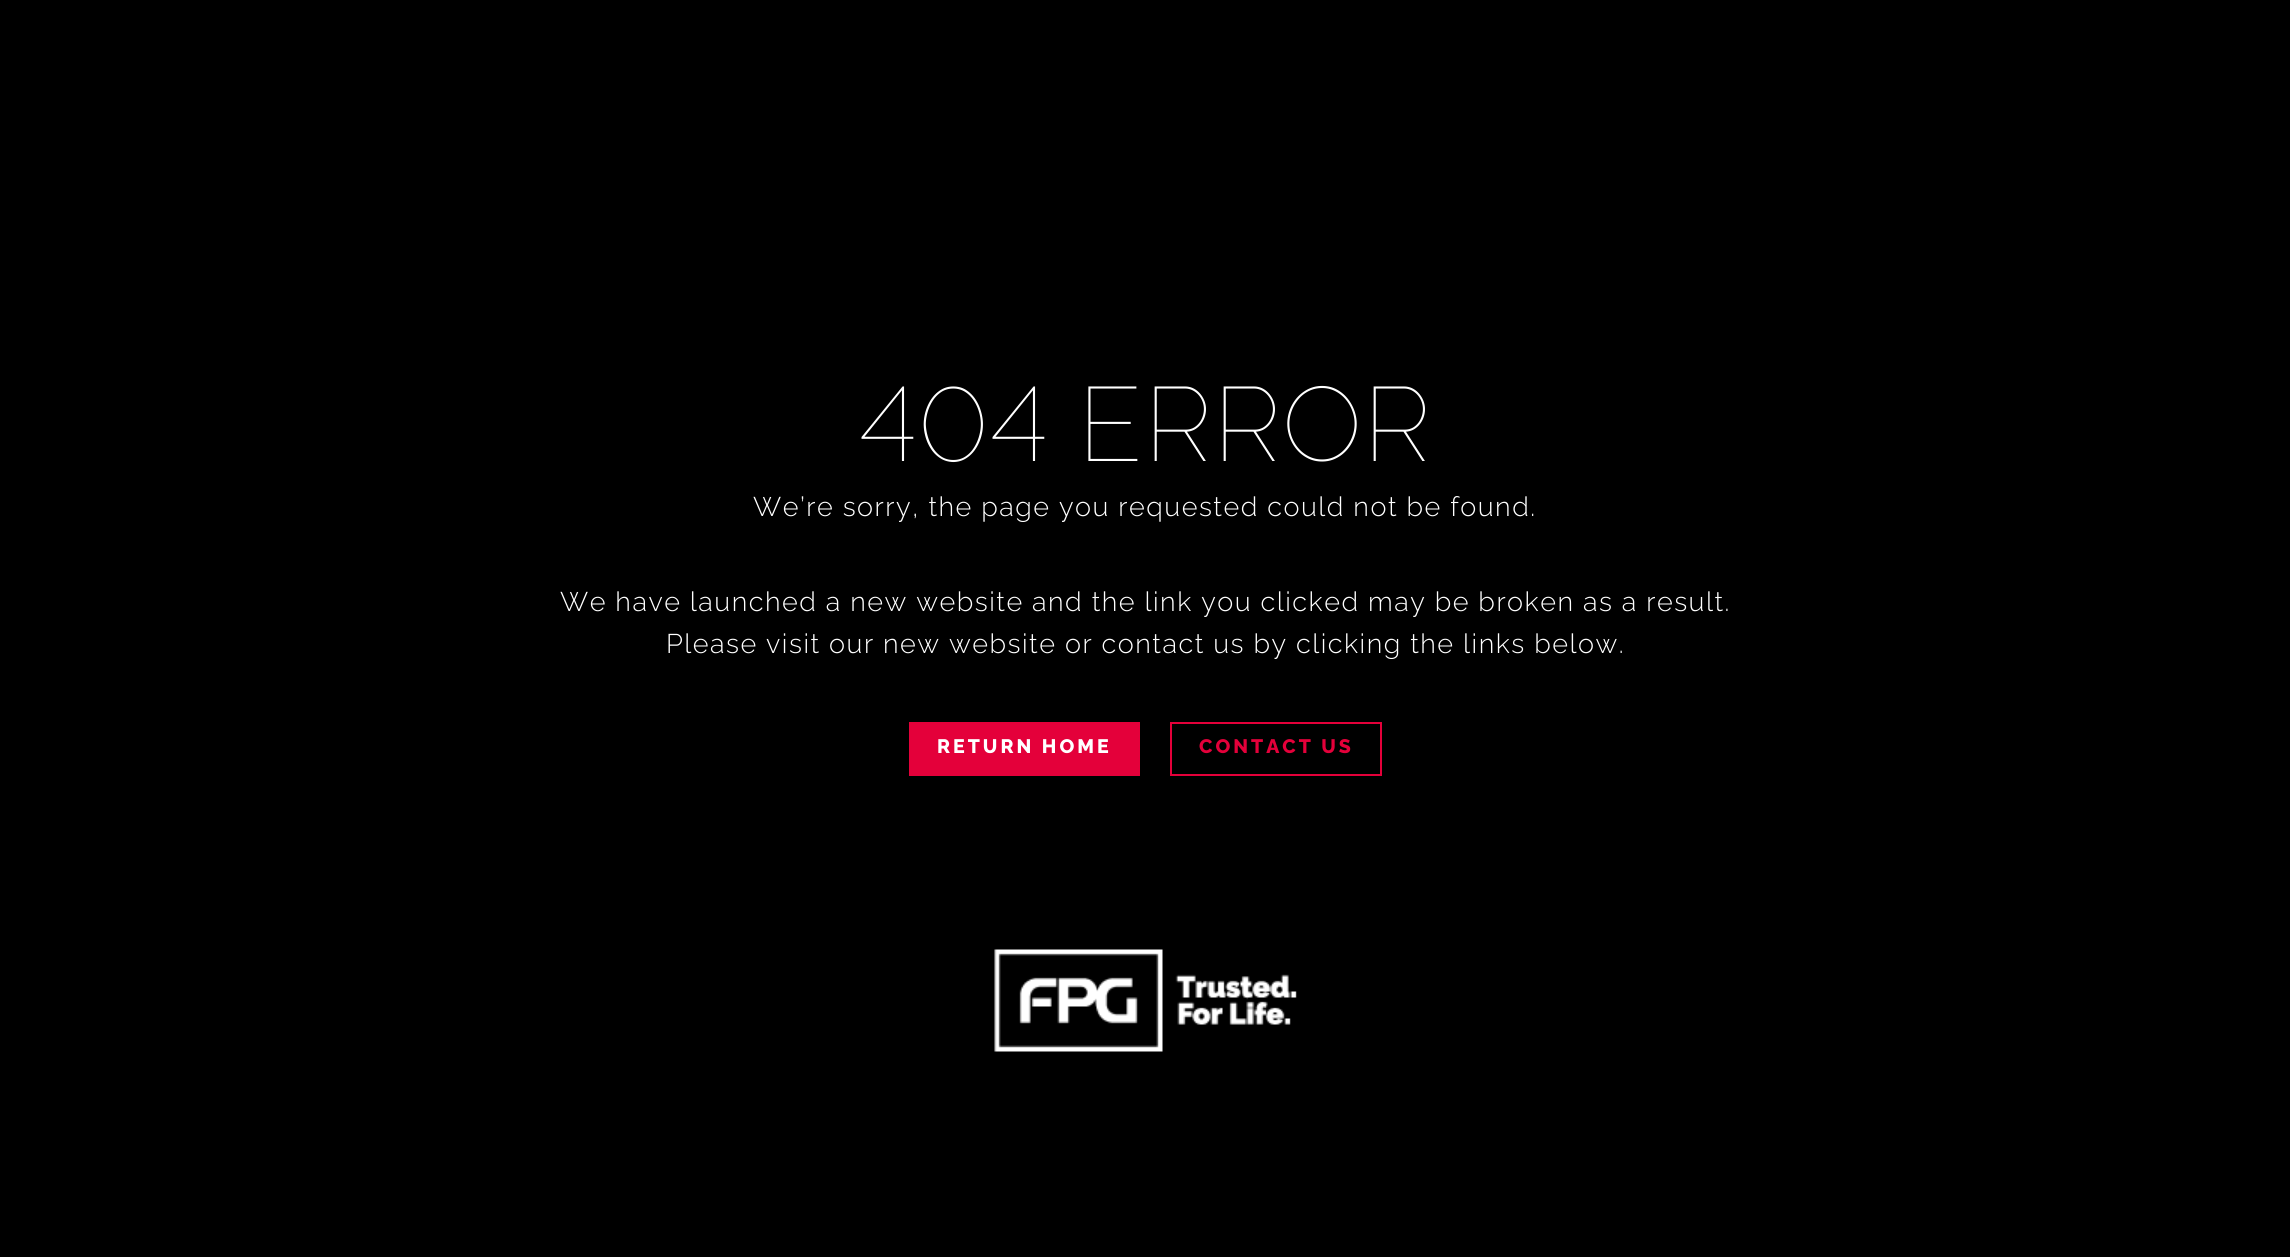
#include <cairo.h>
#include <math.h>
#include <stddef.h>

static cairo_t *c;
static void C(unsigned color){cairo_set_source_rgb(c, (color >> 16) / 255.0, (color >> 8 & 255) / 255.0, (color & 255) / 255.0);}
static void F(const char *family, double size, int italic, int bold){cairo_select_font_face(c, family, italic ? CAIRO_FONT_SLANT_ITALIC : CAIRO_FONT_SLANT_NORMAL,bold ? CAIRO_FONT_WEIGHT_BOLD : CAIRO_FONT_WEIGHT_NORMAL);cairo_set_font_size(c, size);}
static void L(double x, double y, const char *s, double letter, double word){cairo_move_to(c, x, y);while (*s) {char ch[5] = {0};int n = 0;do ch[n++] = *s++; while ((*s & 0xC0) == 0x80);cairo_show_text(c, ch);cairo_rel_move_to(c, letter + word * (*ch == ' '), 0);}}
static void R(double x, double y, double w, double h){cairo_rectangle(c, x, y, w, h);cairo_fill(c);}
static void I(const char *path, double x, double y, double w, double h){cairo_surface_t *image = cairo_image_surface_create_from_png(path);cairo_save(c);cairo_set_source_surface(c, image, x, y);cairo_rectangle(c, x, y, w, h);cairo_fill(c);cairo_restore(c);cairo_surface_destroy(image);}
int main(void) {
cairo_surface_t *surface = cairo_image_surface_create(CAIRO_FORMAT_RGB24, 2290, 1257);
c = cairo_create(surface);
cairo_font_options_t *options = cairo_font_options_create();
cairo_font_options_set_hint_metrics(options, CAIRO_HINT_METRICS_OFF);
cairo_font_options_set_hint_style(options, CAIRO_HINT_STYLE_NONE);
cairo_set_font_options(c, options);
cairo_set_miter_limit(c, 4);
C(0x000000);
cairo_paint(c);
F("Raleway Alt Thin",105,0,0);
C(0xffffff);
L(859,461,"404 ERROR",1.5,0);
F("Raleway Light",27,0,0);
L(753,516,"We’re sorry, the page you requested could not be found.",1.5,0);
L(560,611,"We have launched a new website and the link you clicked may be broken as a result.",1.5,0);
L(666,653,"Please visit our new website or contact us by clicking the links below.",1.5,0);
C(0xe4003a);
R(909,722,231,54);
F("Raleway ExtraBold",19.5,0,0);
C(0xffffff);
L(937,753,"RETURN HOME",3,0);
cairo_rectangle(c,1171,723,210,52);
C(0xe4003a);
cairo_stroke(c);
L(1199,753,"CONTACT US",3,0);
I("1.png",994,949,303,103);
cairo_surface_write_to_png(surface, "o.png");
cairo_font_options_destroy(options);
cairo_destroy(c);
cairo_surface_destroy(surface);
return 0;
}
